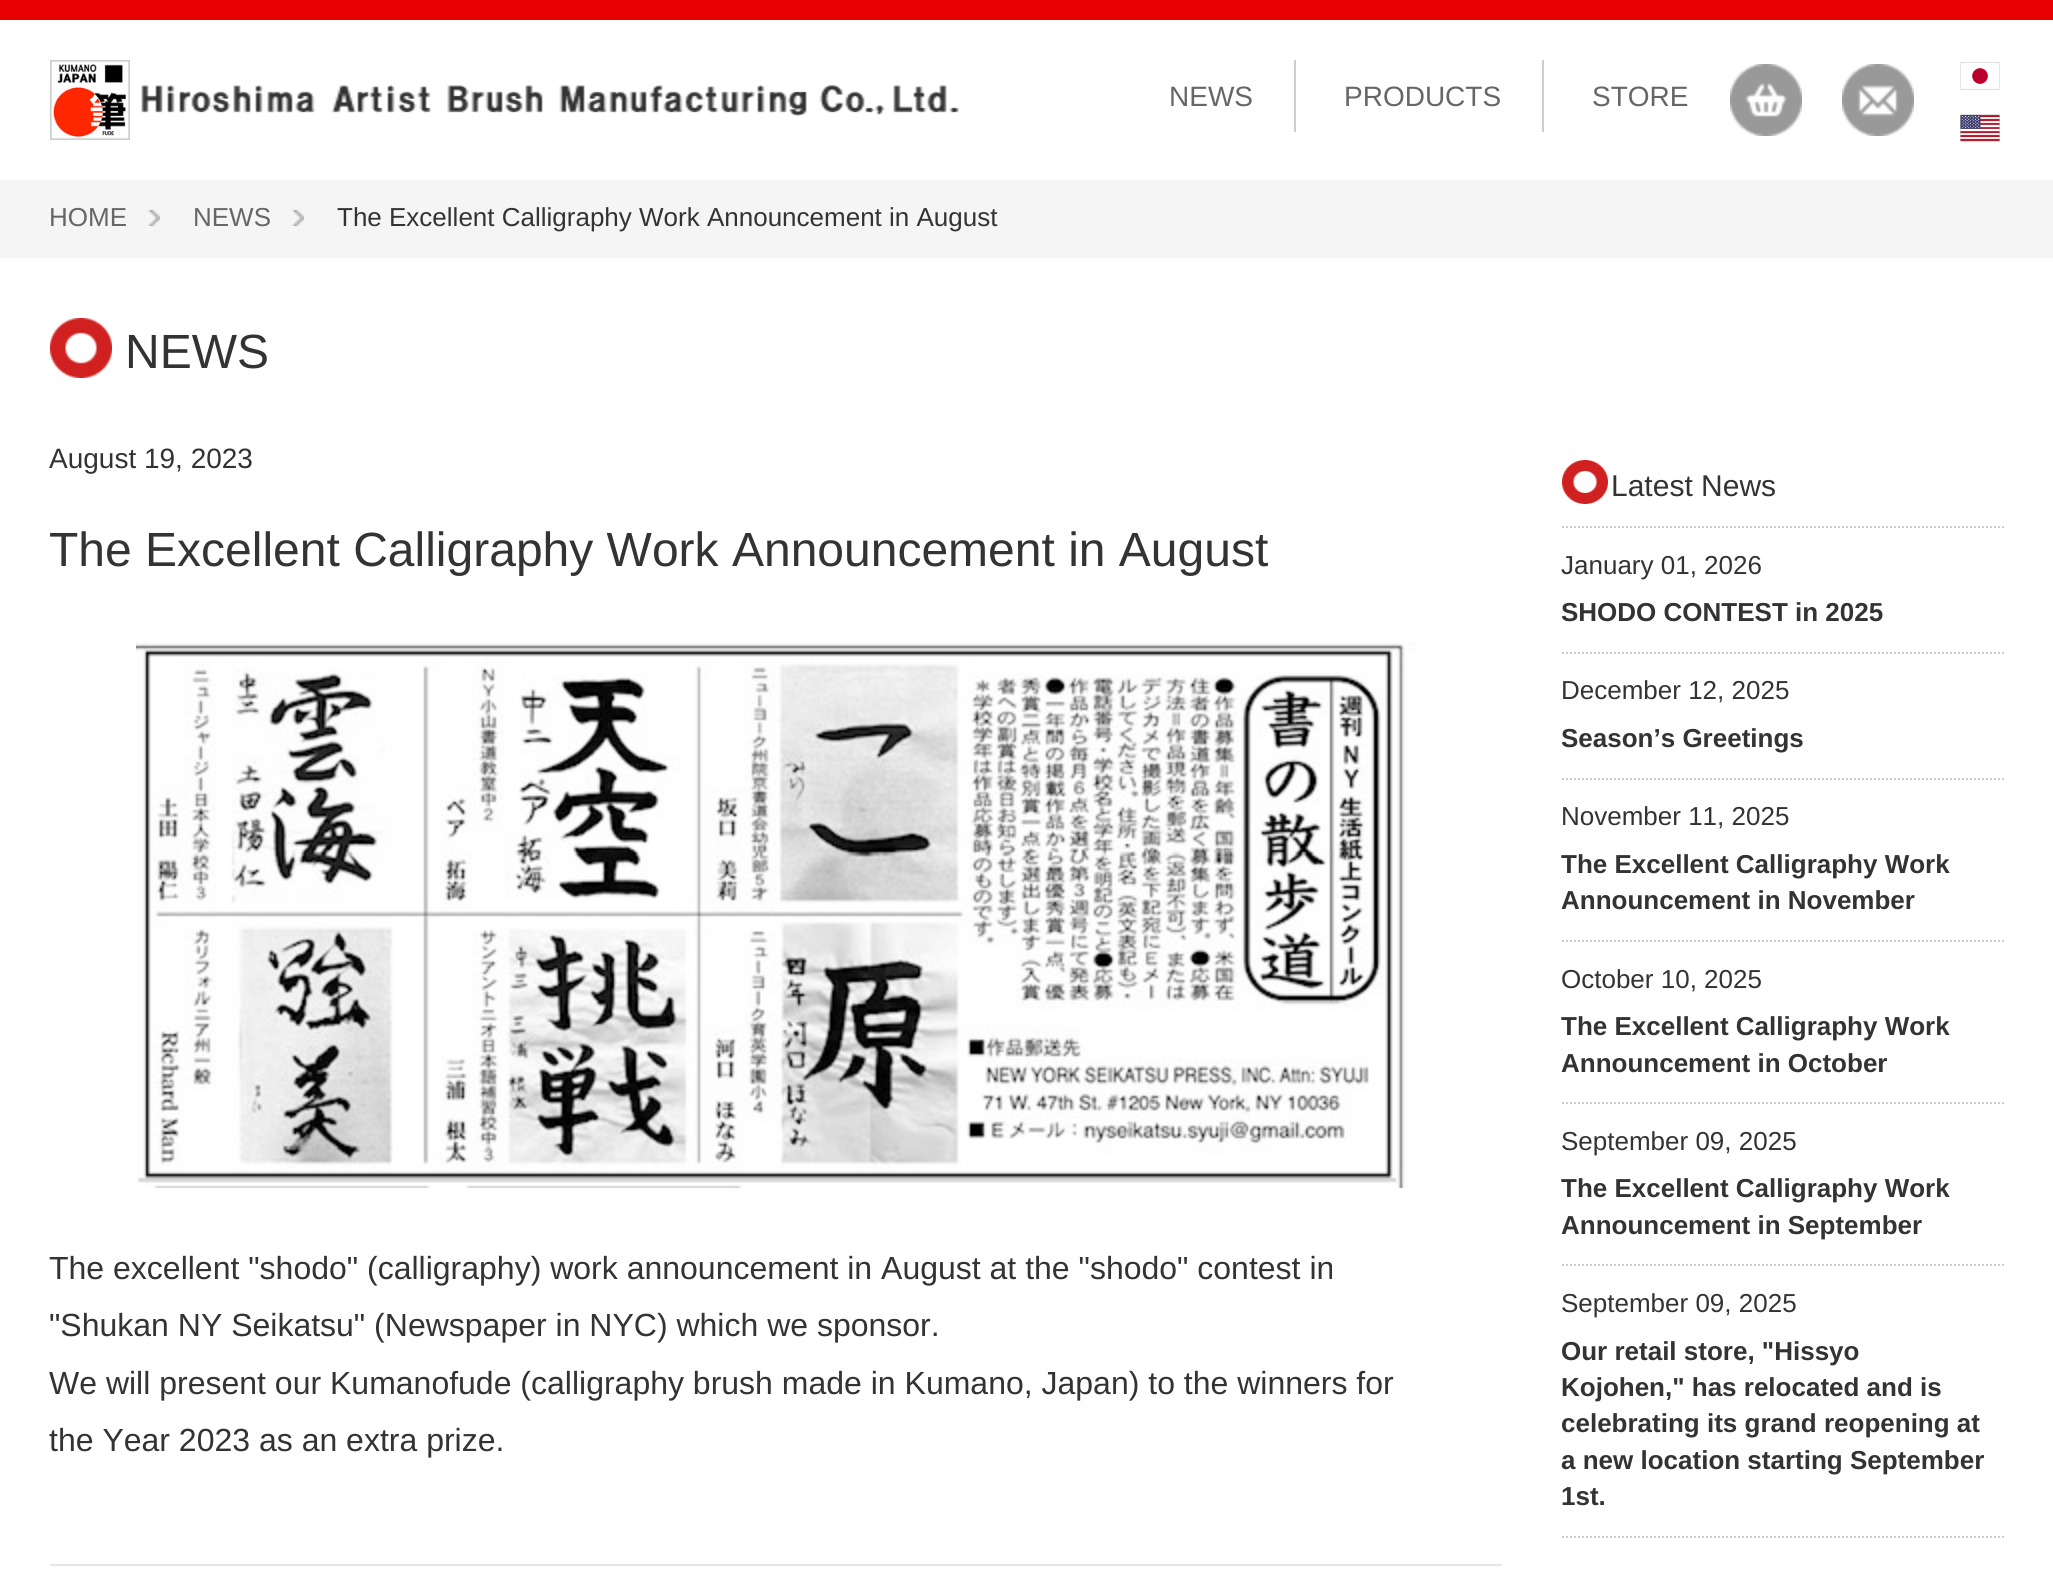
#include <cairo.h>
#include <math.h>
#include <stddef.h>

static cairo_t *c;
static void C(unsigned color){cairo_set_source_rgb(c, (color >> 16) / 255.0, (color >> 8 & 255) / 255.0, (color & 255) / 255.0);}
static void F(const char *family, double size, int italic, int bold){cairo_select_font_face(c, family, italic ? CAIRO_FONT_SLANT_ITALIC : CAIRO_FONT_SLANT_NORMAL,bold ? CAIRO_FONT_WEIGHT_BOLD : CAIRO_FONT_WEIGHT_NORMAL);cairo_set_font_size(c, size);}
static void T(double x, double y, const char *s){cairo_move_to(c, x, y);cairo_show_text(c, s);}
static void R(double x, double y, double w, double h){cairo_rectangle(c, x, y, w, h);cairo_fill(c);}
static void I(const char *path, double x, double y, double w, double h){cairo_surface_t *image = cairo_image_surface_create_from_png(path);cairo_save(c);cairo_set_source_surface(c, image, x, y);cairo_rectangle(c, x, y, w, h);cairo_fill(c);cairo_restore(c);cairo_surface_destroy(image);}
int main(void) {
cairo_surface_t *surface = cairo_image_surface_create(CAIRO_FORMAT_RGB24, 2053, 1584);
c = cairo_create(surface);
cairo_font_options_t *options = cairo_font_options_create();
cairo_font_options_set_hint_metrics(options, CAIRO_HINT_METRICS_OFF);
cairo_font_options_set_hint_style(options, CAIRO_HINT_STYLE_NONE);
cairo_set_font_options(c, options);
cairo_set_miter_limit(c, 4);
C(0xffffff);
cairo_paint(c);
C(0xe70000);
R(0,0,2053,20);
I("1.png",50,60,80,80);
I("2.png",141,85,818,32);
C(0xcccccc);
R(1294,60,2,72);
F("Liberation Sans",28,0,0);
C(0x666666);
T(1169,106,"NEWS");
C(0xcccccc);
R(1542,60,2,72);
C(0x666666);
T(1344,106,"PRODUCTS");
T(1592,106,"STORE");
I("3.png",1730,64,72,72);
I("4.png",1842,64,72,72);
I("5.png",1960,62,40,28);
I("6.png",1960,114,40,28);
C(0xf5f5f5);
R(0,180,2053,78);
F("Liberation Sans",26,0,0);
C(0x666666);
T(49,226,"HOME");
I("7.png",148,210,12,16);
T(193,226,"NEWS");
I("8.png",292,210,12,16);
C(0x333333);
T(337,226,"The Excellent Calligraphy Work Announcement in August");
I("9.png",50,318,62,60);
F("Liberation Sans",48,0,0);
T(125,368,"NEWS");
F("Liberation Sans",28,0,0);
T(49,468,"August 19, 2023");
F("Liberation Sans",48,0,0);
T(49,566,"The Excellent Calligraphy Work Announcement in August");
I("10.png",136,642,1280,546);
F("Liberation Sans",32,0,0);
T(49,1279,"The excellent \"shodo\" (calligraphy) work announcement in August at the \"shodo\" contest in");
T(49,1336,"\"Shukan NY Seikatsu\" (Newspaper in NYC) which we sponsor.");
T(49,1394,"We will present our Kumanofude (calligraphy brush made in Kumano, Japan) to the winners for");
T(49,1451,"the Year 2023 as an extra prize.");
C(0xe5e5e5);
R(50,1564,1452,2);
I("11.png",1562,460,46,44);
F("Liberation Sans",30,0,0);
C(0x333333);
T(1611,496,"Latest News");
cairo_new_path(c);
cairo_move_to(c,1562,527);
cairo_line_to(c,2006,527);
C(0xcccccc);
cairo_set_dash(c,(double[]){2,2},2,0);
cairo_stroke(c);
F("Liberation Sans",26,0,0);
C(0x333333);
T(1561,574,"January 01, 2026");
F("Liberation Sans",26,0,1);
T(1561,621,"SHODO CONTEST in 2025");
cairo_new_path(c);
cairo_move_to(c,1562,653);
cairo_line_to(c,2006,653);
C(0xcccccc);
cairo_stroke(c);
F("Liberation Sans",26,0,0);
C(0x333333);
T(1561,699,"December 12, 2025");
F("Liberation Sans",26,0,1);
T(1561,747,"Season’s Greetings");
cairo_new_path(c);
cairo_move_to(c,1562,779);
cairo_line_to(c,2006,779);
C(0xcccccc);
cairo_stroke(c);
F("Liberation Sans",26,0,0);
C(0x333333);
T(1561,825,"November 11, 2025");
F("Liberation Sans",26,0,1);
T(1561,873,"The Excellent Calligraphy Work");
T(1561,909,"Announcement in November");
cairo_new_path(c);
cairo_move_to(c,1562,941);
cairo_line_to(c,2006,941);
C(0xcccccc);
cairo_stroke(c);
F("Liberation Sans",26,0,0);
C(0x333333);
T(1561,988,"October 10, 2025");
F("Liberation Sans",26,0,1);
T(1561,1035,"The Excellent Calligraphy Work");
T(1561,1072,"Announcement in October");
cairo_new_path(c);
cairo_move_to(c,1562,1103);
cairo_line_to(c,2006,1103);
C(0xcccccc);
cairo_stroke(c);
F("Liberation Sans",26,0,0);
C(0x333333);
T(1561,1150,"September 09, 2025");
F("Liberation Sans",26,0,1);
T(1561,1197,"The Excellent Calligraphy Work");
T(1561,1234,"Announcement in September");
cairo_new_path(c);
cairo_move_to(c,1562,1265);
cairo_line_to(c,2006,1265);
C(0xcccccc);
cairo_stroke(c);
cairo_new_path(c);
cairo_move_to(c,1562,1537);
cairo_line_to(c,2006,1537);
cairo_stroke(c);
F("Liberation Sans",26,0,0);
C(0x333333);
T(1561,1312,"September 09, 2025");
F("Liberation Sans",26,0,1);
T(1561,1360,"Our retail store, \"Hissyo");
T(1561,1396,"Kojohen,\" has relocated and is");
T(1561,1432,"celebrating its grand reopening at");
T(1561,1469,"a new location starting September");
T(1561,1505,"1st.");
cairo_surface_write_to_png(surface, "o.png");
cairo_font_options_destroy(options);
cairo_destroy(c);
cairo_surface_destroy(surface);
return 0;
}
